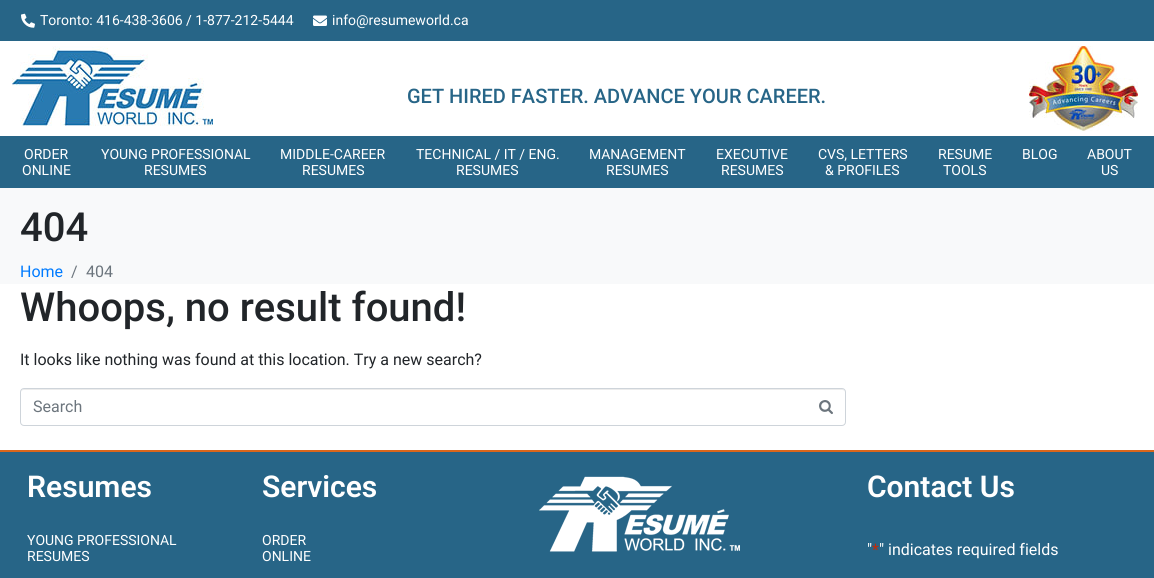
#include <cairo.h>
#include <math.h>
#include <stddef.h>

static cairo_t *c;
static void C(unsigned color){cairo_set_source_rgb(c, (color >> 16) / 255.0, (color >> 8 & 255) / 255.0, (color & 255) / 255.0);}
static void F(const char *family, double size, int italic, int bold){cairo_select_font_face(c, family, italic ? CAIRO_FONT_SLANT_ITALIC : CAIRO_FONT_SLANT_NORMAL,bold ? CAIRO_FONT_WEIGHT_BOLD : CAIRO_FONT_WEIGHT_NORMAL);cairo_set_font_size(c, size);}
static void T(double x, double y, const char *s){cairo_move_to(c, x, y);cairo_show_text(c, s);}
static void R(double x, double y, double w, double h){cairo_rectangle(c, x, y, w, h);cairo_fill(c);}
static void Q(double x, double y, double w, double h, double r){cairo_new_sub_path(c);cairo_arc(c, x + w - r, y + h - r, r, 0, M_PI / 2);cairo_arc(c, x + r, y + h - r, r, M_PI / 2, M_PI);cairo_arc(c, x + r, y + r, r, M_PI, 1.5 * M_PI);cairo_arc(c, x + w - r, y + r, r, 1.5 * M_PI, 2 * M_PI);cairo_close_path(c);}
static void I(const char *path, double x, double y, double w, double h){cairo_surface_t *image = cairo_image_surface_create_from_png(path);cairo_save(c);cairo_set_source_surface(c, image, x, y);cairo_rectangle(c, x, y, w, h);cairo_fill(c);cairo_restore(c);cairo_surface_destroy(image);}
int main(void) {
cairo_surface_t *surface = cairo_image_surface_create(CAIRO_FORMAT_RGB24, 1154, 578);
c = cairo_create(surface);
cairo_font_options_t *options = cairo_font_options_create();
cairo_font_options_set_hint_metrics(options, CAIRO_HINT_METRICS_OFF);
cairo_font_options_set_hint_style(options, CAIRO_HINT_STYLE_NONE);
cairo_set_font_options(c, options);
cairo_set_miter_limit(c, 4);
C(0xffffff);
cairo_paint(c);
C(0x276587);
R(0,0,1154,41);
I("1.png",21,13,14,15);
F("Roboto",14,0,0);
C(0xffffff);
T(40,25,"Toronto: 416-438-3606 / 1-877-212-5444");
I("2.png",313,15,14,11);
T(332,25,"info@resumeworld.ca");
I("3.png",12,46,201,80);
F("Roboto Medium",20,0,0);
C(0x276587);
T(407,103,"GET HIRED FASTER. ADVANCE YOUR CAREER.");
I("4.png",1029,46,109,85);
R(0,136,1154,52);
F("Roboto",14,0,0);
C(0xffffff);
T(24,159,"ORDER");
T(22,175,"ONLINE");
T(101,159,"YOUNG PROFESSIONAL");
T(144,175,"RESUMES");
T(280,159,"MIDDLE-CAREER");
T(302,175,"RESUMES");
T(416,159,"TECHNICAL / IT / ENG.");
T(456,175,"RESUMES");
T(589,159,"MANAGEMENT");
T(606,175,"RESUMES");
T(716,159,"EXECUTIVE");
T(721,175,"RESUMES");
T(818,159,"CVS, LETTERS");
T(825,175,"& PROFILES");
T(938,159,"RESUME");
T(943,175,"TOOLS");
T(1022,159,"BLOG");
T(1087,159,"ABOUT");
T(1101,175,"US");
C(0xf8f9fa);
R(0,188,1154,96);
F("Roboto Medium",40,0,0);
C(0x212529);
T(20,241,"404");
F("Roboto",16,0,0);
C(0x007bff);
T(20,277,"Home");
C(0x6c757d);
T(71,277,"/");
T(86,277,"404");
F("Roboto Medium",40,0,0);
C(0x212529);
T(20,321,"Whoops, no result found!");
F("Roboto",16,0,0);
T(20,365,"It looks like nothing was found at this location. Try a new search?");
C(0xececec);
cairo_new_path(c);
cairo_move_to(c,24,390);
cairo_line_to(c,842,390);
cairo_curve_to(c,844,390,845,391,845,393);
cairo_curve_to(c,845,391,844,389,842,389);
cairo_line_to(c,24,389);
cairo_curve_to(c,22,389,21,391,21,393);
cairo_curve_to(c,21,391,22,390,24,390);
cairo_close_path(c);
cairo_fill(c);
Q(20.5,388.5,825,37,3.5);
C(0xced4da);
cairo_set_line_width(c,1);
cairo_stroke(c);
C(0x6c757d);
T(33,412,"Search");
I("5.png",819,400,14,15);
C(0x276587);
R(0,452,1154,126);
C(0xda661b);
R(0,450,1154,2);
F("Roboto SemiBold",30,0,0);
C(0xffffff);
T(27,497,"Resumes");
F("Roboto",14,0,0);
T(27,545,"YOUNG PROFESSIONAL");
T(27,561,"RESUMES");
F("Roboto SemiBold",30,0,0);
T(262,497,"Services");
F("Roboto",14,0,0);
T(262,545,"ORDER");
T(262,561,"ONLINE");
I("6.png",539,476,201,76);
F("Roboto SemiBold",30,0,0);
T(867,497,"Contact Us");
F("Roboto",16,0,0);
T(867,555,"\"");
C(0xc02b0a);
T(872,555,"*");
C(0xffffff);
T(879,555,"\" indicates required fields");
cairo_surface_write_to_png(surface, "o.png");
cairo_font_options_destroy(options);
cairo_destroy(c);
cairo_surface_destroy(surface);
return 0;
}
